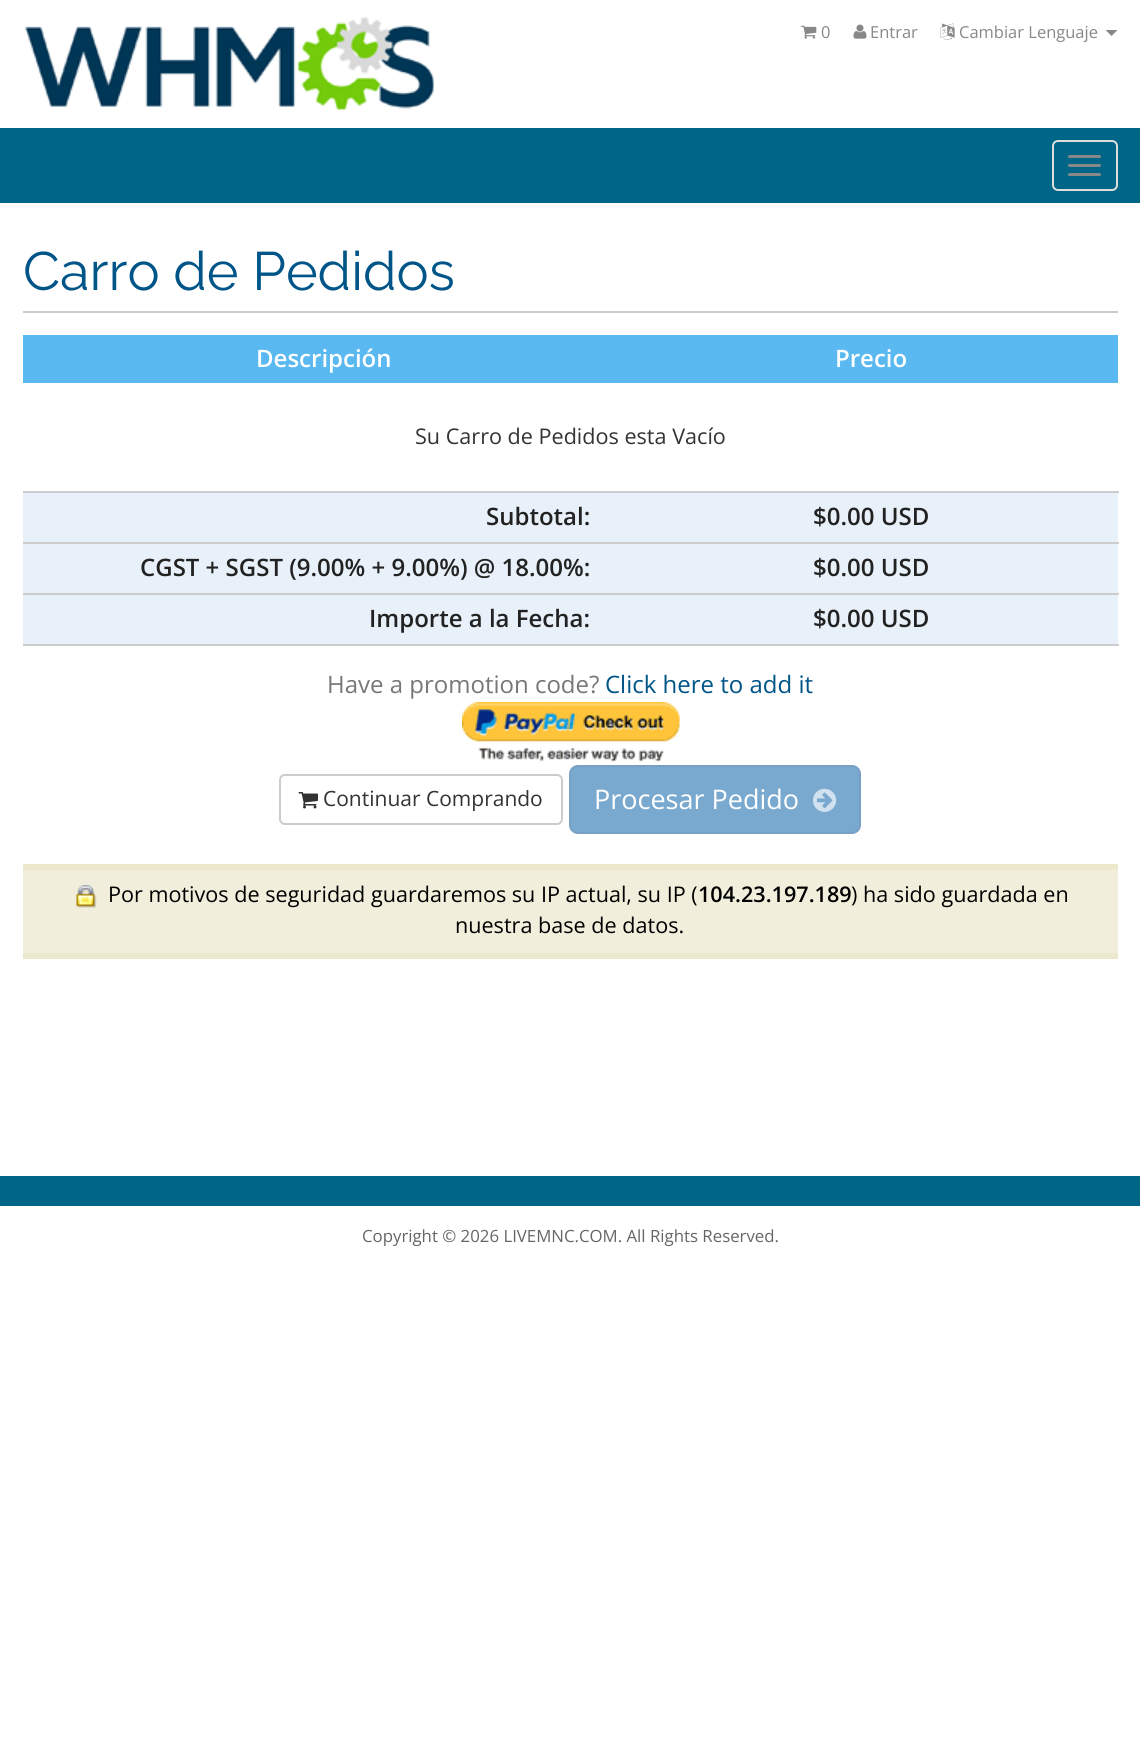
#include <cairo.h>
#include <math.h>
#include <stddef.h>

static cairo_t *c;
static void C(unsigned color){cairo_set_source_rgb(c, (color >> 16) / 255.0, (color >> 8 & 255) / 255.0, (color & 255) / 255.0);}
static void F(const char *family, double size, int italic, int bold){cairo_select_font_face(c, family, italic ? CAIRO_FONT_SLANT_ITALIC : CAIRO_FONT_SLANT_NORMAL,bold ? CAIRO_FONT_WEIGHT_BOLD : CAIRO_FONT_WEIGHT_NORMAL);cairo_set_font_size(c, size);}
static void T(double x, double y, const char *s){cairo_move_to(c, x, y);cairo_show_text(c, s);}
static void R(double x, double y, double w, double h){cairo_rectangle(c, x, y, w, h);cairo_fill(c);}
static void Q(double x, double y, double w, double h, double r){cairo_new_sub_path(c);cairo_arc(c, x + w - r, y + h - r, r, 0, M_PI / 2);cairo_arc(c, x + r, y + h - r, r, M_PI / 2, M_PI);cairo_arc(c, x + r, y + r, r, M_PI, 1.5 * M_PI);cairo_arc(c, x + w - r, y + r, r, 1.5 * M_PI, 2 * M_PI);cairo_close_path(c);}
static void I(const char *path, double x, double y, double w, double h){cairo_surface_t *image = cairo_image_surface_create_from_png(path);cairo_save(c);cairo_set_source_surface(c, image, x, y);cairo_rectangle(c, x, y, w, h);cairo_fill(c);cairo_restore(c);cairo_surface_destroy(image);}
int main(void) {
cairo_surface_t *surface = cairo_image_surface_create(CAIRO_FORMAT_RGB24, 1140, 1755);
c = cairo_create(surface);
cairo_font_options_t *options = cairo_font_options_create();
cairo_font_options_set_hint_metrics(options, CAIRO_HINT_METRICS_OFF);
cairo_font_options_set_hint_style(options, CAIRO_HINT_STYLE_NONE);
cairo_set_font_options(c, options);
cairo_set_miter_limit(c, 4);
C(0xffffff);
cairo_paint(c);
I("1.png",25,16,409,94);
I("2.png",801,25,16,14);
F("Open Sans",16.5,0,0);
C(0x888888);
T(821,38,"0");
I("3.png",853,24,14,15);
T(870,38,"Entrar");
I("4.png",940,23,15,17);
T(959,38,"Cambiar Lenguaje");
cairo_new_path(c);
cairo_move_to(c,1105.5,30);
cairo_line_to(c,1117.5,30);
cairo_line_to(c,1111.5,36);
cairo_close_path(c);
cairo_fill(c);
C(0x006687);
R(0,128,1140,75);
Q(1053,141,64,49,5);
C(0xdddddd);
cairo_stroke(c);
C(0x888888);
Q(1068,155,33,3,1.5);
cairo_fill(c);
Q(1068,164,33,3,1.5);
cairo_fill(c);
Q(1068,173,33,3,1.5);
cairo_fill(c);
C(0xcccccc);
R(23,311,1095,2);
F("Raleway",54,0,0);
C(0x005588);
T(23,290,"Carro de Pedidos");
C(0x5ab9f1);
R(23,335,1095,48);
F("Open Sans SemiBold",24,0,0);
C(0xffffff);
T(256,367,"Descripción");
T(835,367,"Precio");
C(0xcccccc);
R(23,491,1096,2);
F("Open Sans",21.6,0,0);
C(0x333333);
T(415,444,"Su Carro de Pedidos esta Vacío");
C(0xe8f0f9);
R(23,493,1095,49);
F("Open Sans SemiBold",24,0,0);
C(0x222222);
T(486,525,"Subtotal:");
C(0xcccccc);
R(23,542,1096,2);
C(0x222222);
T(813,525,"$0.00 USD");
C(0xe8f0f9);
R(23,544,1095,49);
C(0x222222);
T(140,576,"CGST + SGST (9.00% + 9.00%) @ 18.00%:");
C(0xcccccc);
R(23,593,1096,2);
C(0x222222);
T(813,576,"$0.00 USD");
C(0xe8f0f9);
R(23,595,1095,49);
C(0x222222);
T(369,627,"Importe a la Fecha:");
C(0xcccccc);
R(23,644,1096,2);
C(0x222222);
T(813,627,"$0.00 USD");
F("Open Sans",24,0,0);
C(0x777777);
T(327,693,"Have a promotion code?");
C(0x005588);
T(605,693,"Click here to add it");
I("5.png",462,702,218,61);
Q(280,775,282,49,5);
C(0xcccccc);
cairo_stroke(c);
I("6.png",298,792,20,17);
F("Open Sans",21,0,0);
C(0x333333);
T(323,806,"Continuar Comprando");
C(0x7aa9d0);
Q(570,766,290,67,8);
cairo_fill_preserve(c);
C(0x77a0c4);
cairo_stroke(c);
F("Open Sans",27,0,0);
C(0xffffff);
T(594,809,"Procesar Pedido");
I("7.png",813,788,24,24);
C(0xf1efdc);
R(23,870,1095,83);
C(0xebe8cd);
R(23,864,1095,6);
R(23,953,1095,6);
I("8.png",76,885,21,23);
F("Open Sans",21.6,0,0);
C(0x000000);
T(108,902,"Por motivos de seguridad guardaremos su IP actual, su IP (");
F("Open Sans SemiBold",21.6,0,0);
T(698,902,"104.23.197.189");
F("Open Sans",21.6,0,0);
T(851,902,") ha sido guardada en");
T(455,933,"nuestra base de datos.");
C(0x006687);
R(0,1176,1140,30);
F("Open Sans",16.8,0,0);
C(0x666666);
T(362,1242,"Copyright © 2026 LIVEMNC.COM. All Rights Reserved.");
cairo_surface_write_to_png(surface, "o.png");
cairo_font_options_destroy(options);
cairo_destroy(c);
cairo_surface_destroy(surface);
return 0;
}
